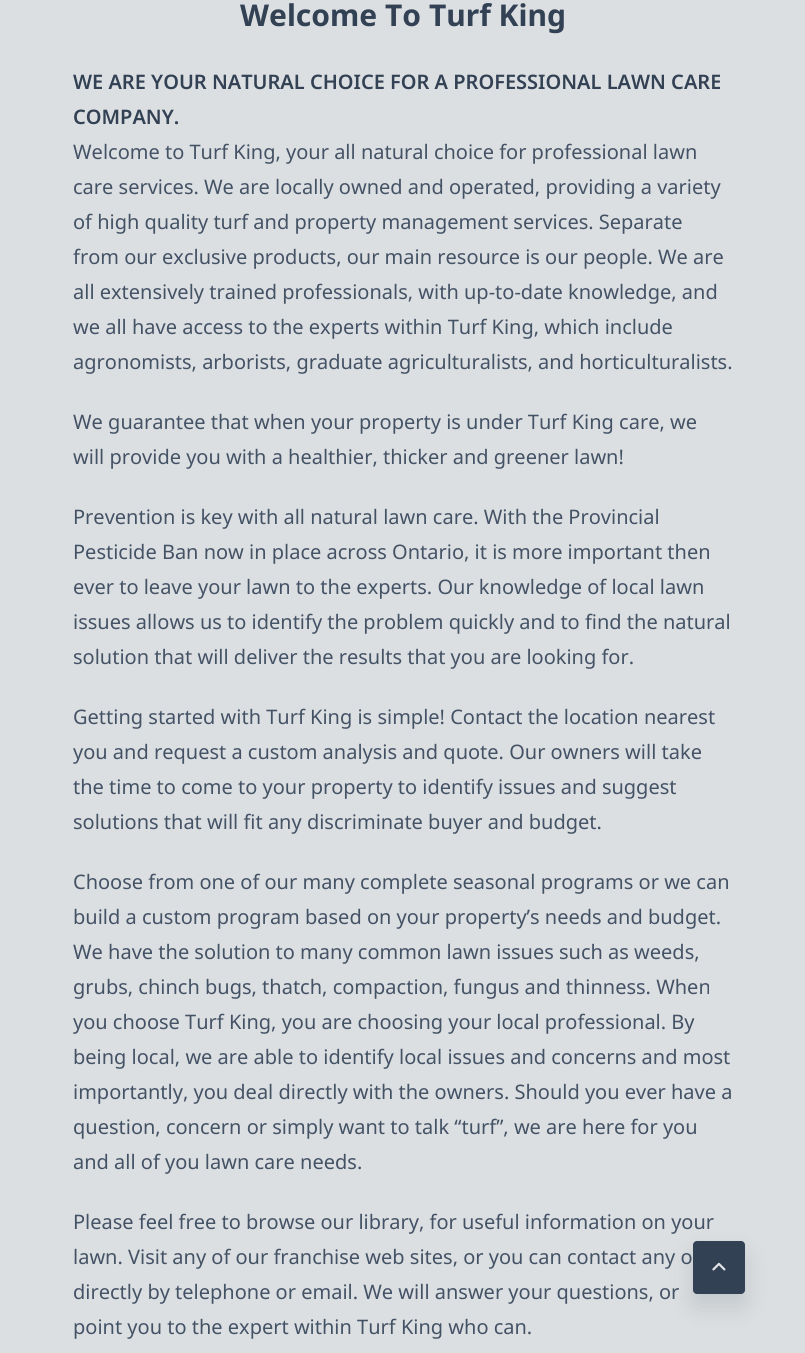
#include <cairo.h>
#include <math.h>
#include <stddef.h>

static cairo_t *c;
static void C(unsigned color){cairo_set_source_rgb(c, (color >> 16) / 255.0, (color >> 8 & 255) / 255.0, (color & 255) / 255.0);}
static void F(const char *family, double size, int italic, int bold){cairo_select_font_face(c, family, italic ? CAIRO_FONT_SLANT_ITALIC : CAIRO_FONT_SLANT_NORMAL,bold ? CAIRO_FONT_WEIGHT_BOLD : CAIRO_FONT_WEIGHT_NORMAL);cairo_set_font_size(c, size);}
static void T(double x, double y, const char *s){cairo_move_to(c, x, y);cairo_show_text(c, s);}
static void Q(double x, double y, double w, double h, double r){cairo_new_sub_path(c);cairo_arc(c, x + w - r, y + h - r, r, 0, M_PI / 2);cairo_arc(c, x + r, y + h - r, r, M_PI / 2, M_PI);cairo_arc(c, x + r, y + r, r, M_PI, 1.5 * M_PI);cairo_arc(c, x + w - r, y + r, r, 1.5 * M_PI, 2 * M_PI);cairo_close_path(c);}
static void S(double x, double y, double w, double h, double r, double blur, double alpha){cairo_push_group_with_content(c, CAIRO_CONTENT_ALPHA);cairo_set_operator(c, CAIRO_OPERATOR_SOURCE);for (int i = 15; i >= -15 && fmin(w, h) + blur * i / 3 > 0; i -= 2) {double e = blur * i / 6;cairo_set_source_rgba(c, 0, 0, 0, alpha * erfc((i - 1) / 8.5) / 2);Q(x - e, y - e, w + 2 * e, h + 2 * e, fmax(0, fmin(r + e + blur * .6, fmin(w, h) / 2 + e)));cairo_fill(c);}cairo_pattern_t *soft = cairo_pop_group(c);cairo_mask(c, soft);cairo_pattern_destroy(soft);}
static void I(const char *path, double x, double y, double w, double h){cairo_surface_t *image = cairo_image_surface_create_from_png(path);cairo_save(c);cairo_set_source_surface(c, image, x, y);cairo_rectangle(c, x, y, w, h);cairo_fill(c);cairo_restore(c);cairo_surface_destroy(image);}
int main(void) {
cairo_surface_t *surface = cairo_image_surface_create(CAIRO_FORMAT_RGB24, 805, 1353);
c = cairo_create(surface);
cairo_font_options_t *options = cairo_font_options_create();
cairo_font_options_set_hint_metrics(options, CAIRO_HINT_METRICS_OFF);
cairo_font_options_set_hint_style(options, CAIRO_HINT_STYLE_NONE);
cairo_set_font_options(c, options);
cairo_set_miter_limit(c, 4);
C(0xdcdfe1);
cairo_paint(c);
F("Noto Sans",30,0,1);
C(0x334155);
T(240,26,"Welcome To Turf King");
F("Noto Sans SemiBold",20,0,0);
T(73,89,"WE ARE YOUR NATURAL CHOICE FOR A PROFESSIONAL LAWN CARE");
T(73,124,"COMPANY.");
F("Noto Sans",20,0,0);
C(0x445266);
T(73,159,"Welcome to Turf King, your all natural choice for professional lawn");
T(73,194,"care services. We are locally owned and operated, providing a variety");
T(73,229,"of high quality turf and property management services. Separate");
T(73,264,"from our exclusive products, our main resource is our people. We are");
T(73,299,"all extensively trained professionals, with up-to-date knowledge, and");
T(73,334,"we all have access to the experts within Turf King, which include");
T(73,369,"agronomists, arborists, graduate agriculturalists, and horticulturalists.");
T(73,429,"We guarantee that when your property is under Turf King care, we");
T(73,464,"will provide you with a healthier, thicker and greener lawn!");
T(73,524,"Prevention is key with all natural lawn care. With the Provincial");
T(73,559,"Pesticide Ban now in place across Ontario, it is more important then");
T(73,594,"ever to leave your lawn to the experts. Our knowledge of local lawn");
T(73,629,"issues allows us to identify the problem quickly and to find the natural");
T(73,664,"solution that will deliver the results that you are looking for.");
T(73,724,"Getting started with Turf King is simple! Contact the location nearest");
T(73,759,"you and request a custom analysis and quote. Our owners will take");
T(73,794,"the time to come to your property to identify issues and suggest");
T(73,829,"solutions that will fit any discriminate buyer and budget.");
T(73,889,"Choose from one of our many complete seasonal programs or we can");
T(73,924,"build a custom program based on your property’s needs and budget.");
T(73,959,"We have the solution to many common lawn issues such as weeds,");
T(73,994,"grubs, chinch bugs, thatch, compaction, fungus and thinness. When");
T(73,1029,"you choose Turf King, you are choosing your local professional. By");
T(73,1064,"being local, we are able to identify local issues and concerns and most");
T(73,1099,"importantly, you deal directly with the owners. Should you ever have a");
T(73,1134,"question, concern or simply want to talk “turf”, we are here for you");
T(73,1169,"and all of you lawn care needs.");
T(73,1229,"Please feel free to browse our library, for useful information on your");
T(73,1264,"lawn. Visit any of our franchise web sites, or you can contact any o");
T(73,1299,"directly by telephone or email. We will answer your questions, or");
T(73,1334,"point you to the expert within Turf King who can.");
C(0x2d3e51);
S(693,1254,52,52,4,12.5,.15);
C(0x334155);
Q(693,1241,52,53,4);
cairo_fill(c);
I("1.png",712,1262,14,9);
cairo_surface_write_to_png(surface, "o.png");
cairo_font_options_destroy(options);
cairo_destroy(c);
cairo_surface_destroy(surface);
return 0;
}
